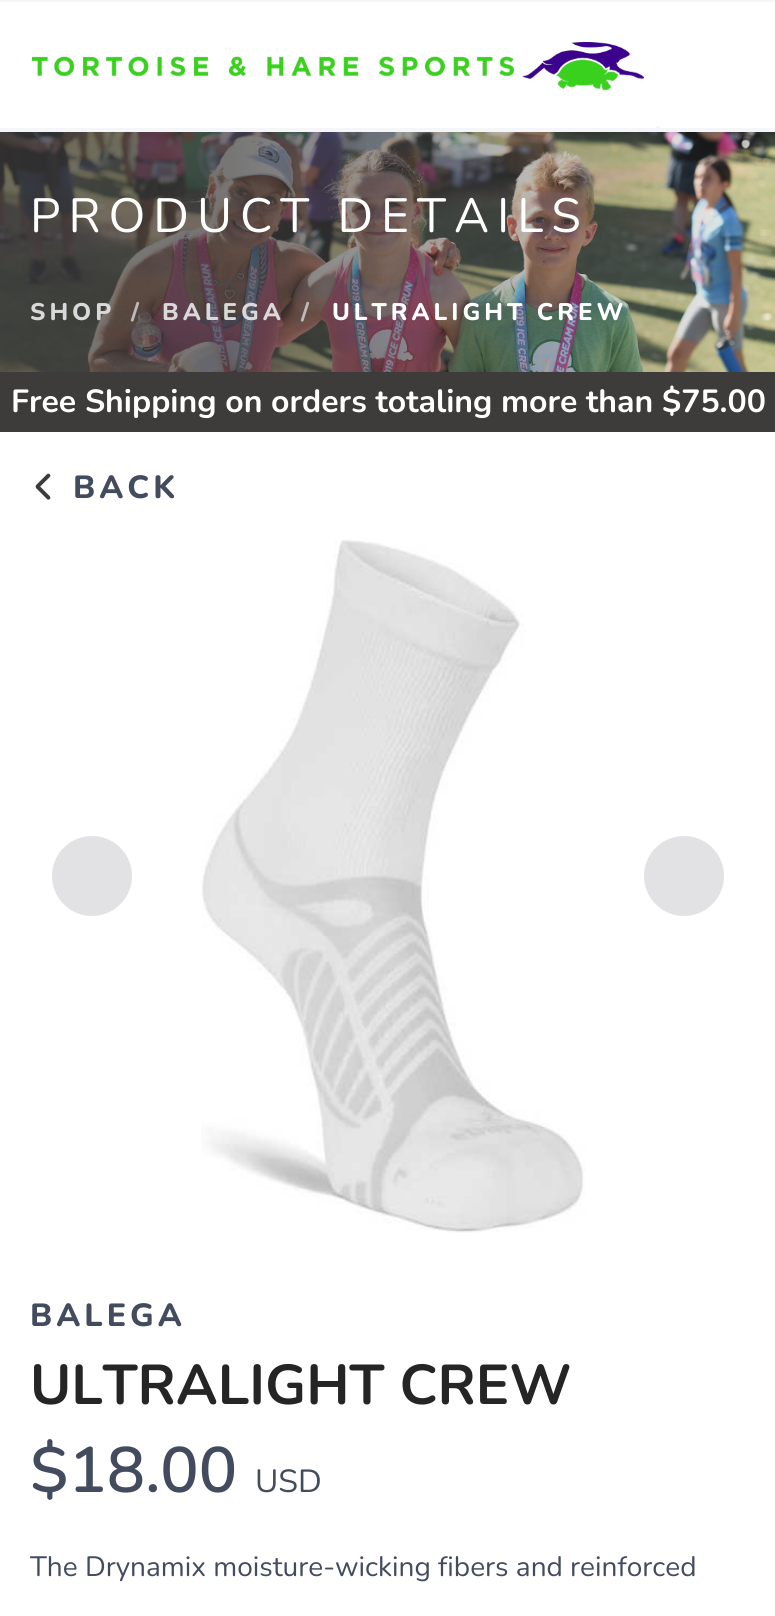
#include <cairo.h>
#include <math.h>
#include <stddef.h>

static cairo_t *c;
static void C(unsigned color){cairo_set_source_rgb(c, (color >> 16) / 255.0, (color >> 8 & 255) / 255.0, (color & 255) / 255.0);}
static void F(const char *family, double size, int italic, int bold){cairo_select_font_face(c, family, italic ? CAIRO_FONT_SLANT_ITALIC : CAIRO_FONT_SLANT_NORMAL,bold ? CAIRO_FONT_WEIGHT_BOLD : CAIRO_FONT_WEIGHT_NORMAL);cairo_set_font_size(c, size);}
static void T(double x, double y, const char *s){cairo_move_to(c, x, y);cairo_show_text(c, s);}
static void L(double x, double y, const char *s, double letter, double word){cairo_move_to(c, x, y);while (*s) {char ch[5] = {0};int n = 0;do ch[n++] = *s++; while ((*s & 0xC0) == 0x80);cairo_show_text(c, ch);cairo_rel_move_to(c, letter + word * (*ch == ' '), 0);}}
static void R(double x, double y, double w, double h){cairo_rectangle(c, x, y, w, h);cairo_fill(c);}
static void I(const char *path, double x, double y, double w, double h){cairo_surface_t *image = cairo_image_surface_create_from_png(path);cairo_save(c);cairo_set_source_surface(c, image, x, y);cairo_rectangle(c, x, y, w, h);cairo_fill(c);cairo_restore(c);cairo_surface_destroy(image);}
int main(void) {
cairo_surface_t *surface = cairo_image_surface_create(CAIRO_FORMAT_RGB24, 775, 1616);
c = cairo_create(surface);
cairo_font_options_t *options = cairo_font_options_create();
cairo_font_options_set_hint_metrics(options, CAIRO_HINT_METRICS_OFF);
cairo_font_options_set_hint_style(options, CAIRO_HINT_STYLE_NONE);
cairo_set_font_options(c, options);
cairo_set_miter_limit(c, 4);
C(0xffffff);
cairo_paint(c);
C(0xf5f6fa);
R(0,0,775,2);
R(0,128,775,4);
I("1.png",32,42,612,49);
R(656,126,4,2);
I("2.png",0,132,775,240);
F("Nunito",48,0,0);
C(0xffffff);
L(30,232,"PRODUCT DETAILS",8,0);
F("Nunito ExtraBold",24,0,0);
C(0xd9d9d9);
L(30,320,"SHOP",4,0);
C(0xbbbbbb);
L(131,320,"/",4,0);
C(0xd9d9d9);
L(162,320,"BALEGA",4,0);
C(0xbbbbbb);
L(301,320,"/",4,0);
C(0xffffff);
L(332,320,"ULTRALIGHT CREW",4,0);
C(0x3d3c3b);
R(0,372,775,60);
F("Nunito",32,0,1);
C(0xffffff);
T(11,412,"Free Shipping on orders totaling more than $75.00");
I("3.png",35,473,16,27);
F("Nunito ExtraBold",32,0,0);
C(0x434c5e);
L(73,498,"BACK",4,0);
I("4.png",201,539,385,694);
C(0xe2e2e5);
cairo_arc(c,92,876,40,0,2 * M_PI);
cairo_fill(c);
cairo_arc(c,684,876,40,0,2 * M_PI);
cairo_fill(c);
C(0x434c5e);
L(30,1326,"BALEGA",4,0);
F("Nunito",56,0,1);
C(0x252525);
T(30,1404,"ULTRALIGHT CREW");
F("Nunito SemiBold",64,0,0);
C(0x434c5e);
T(30,1492,"$18.00");
F("Nunito",32,0,0);
T(255,1492,"USD");
F("Nunito",28,0,0);
T(30,1576,"The Drynamix moisture-wicking fibers and reinforced");
cairo_surface_write_to_png(surface, "o.png");
cairo_font_options_destroy(options);
cairo_destroy(c);
cairo_surface_destroy(surface);
return 0;
}
